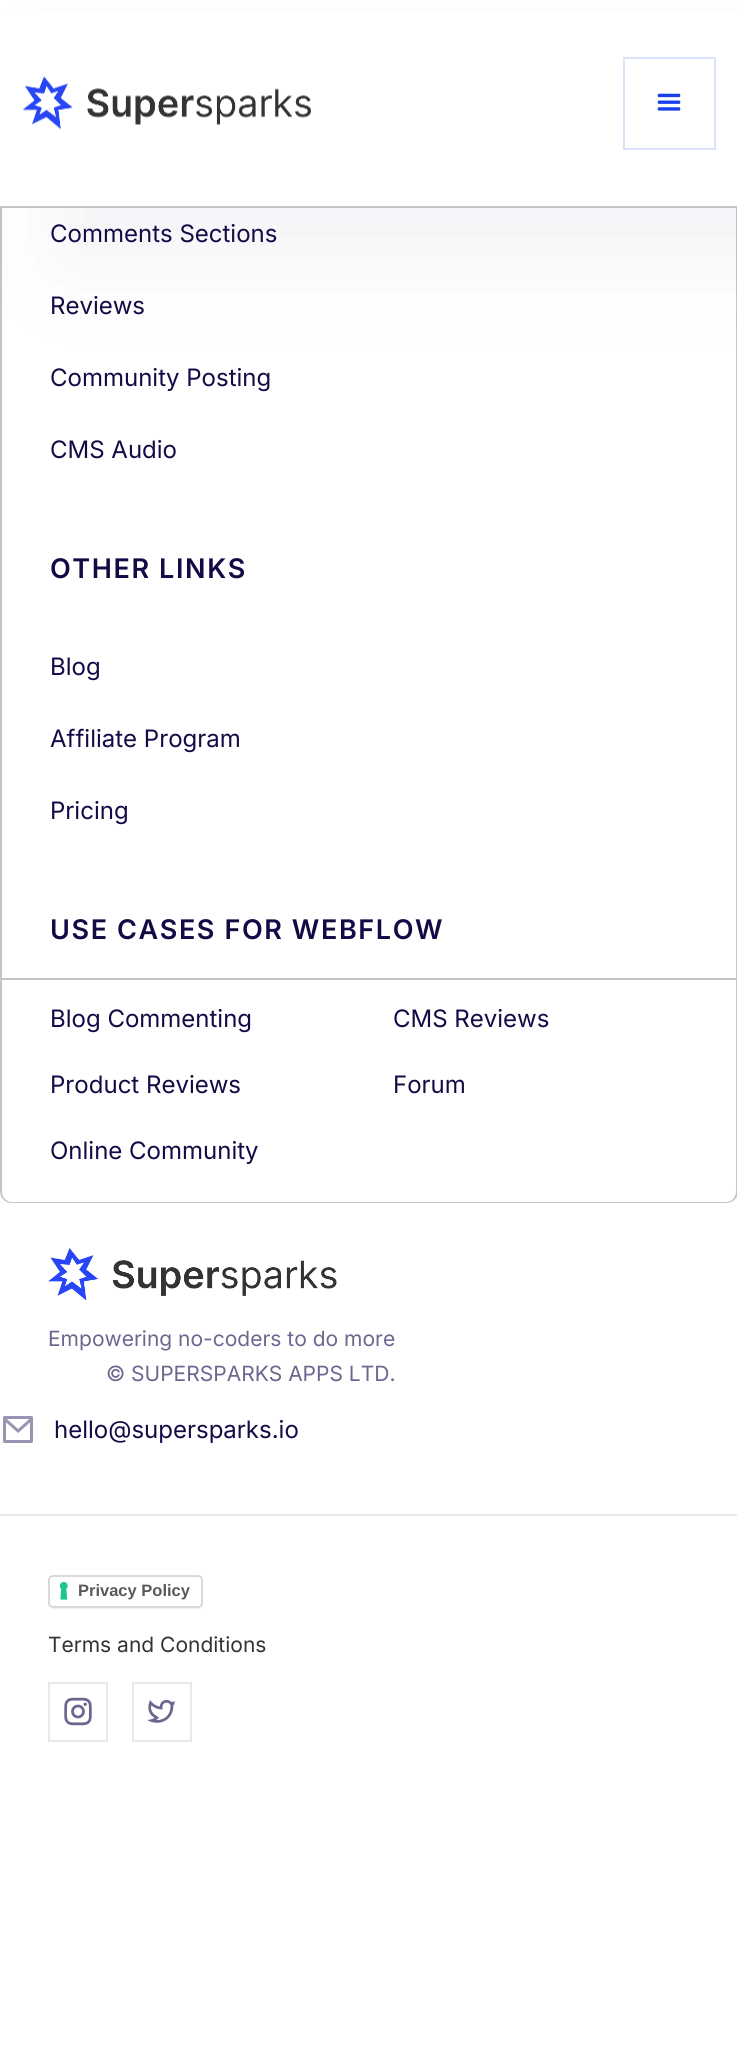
#include <cairo.h>
#include <math.h>
#include <stddef.h>

static cairo_t *c;
static void C(unsigned color){cairo_set_source_rgb(c, (color >> 16) / 255.0, (color >> 8 & 255) / 255.0, (color & 255) / 255.0);}
static void F(const char *family, double size, int italic, int bold){cairo_select_font_face(c, family, italic ? CAIRO_FONT_SLANT_ITALIC : CAIRO_FONT_SLANT_NORMAL,bold ? CAIRO_FONT_WEIGHT_BOLD : CAIRO_FONT_WEIGHT_NORMAL);cairo_set_font_size(c, size);}
static void T(double x, double y, const char *s){cairo_move_to(c, x, y);cairo_show_text(c, s);}
static void L(double x, double y, const char *s, double letter, double word){cairo_move_to(c, x, y);while (*s) {char ch[5] = {0};int n = 0;do ch[n++] = *s++; while ((*s & 0xC0) == 0x80);cairo_show_text(c, ch);cairo_rel_move_to(c, letter + word * (*ch == ' '), 0);}}
static void R(double x, double y, double w, double h){cairo_rectangle(c, x, y, w, h);cairo_fill(c);}
static void Q(double x, double y, double w, double h, double r){cairo_new_sub_path(c);cairo_arc(c, x + w - r, y + h - r, r, 0, M_PI / 2);cairo_arc(c, x + r, y + h - r, r, M_PI / 2, M_PI);cairo_arc(c, x + r, y + r, r, M_PI, 1.5 * M_PI);cairo_arc(c, x + w - r, y + r, r, 1.5 * M_PI, 2 * M_PI);cairo_close_path(c);}
static void S(double x, double y, double w, double h, double r, double blur, double alpha){cairo_push_group_with_content(c, CAIRO_CONTENT_ALPHA);cairo_set_operator(c, CAIRO_OPERATOR_SOURCE);for (int i = 15; i >= -15 && fmin(w, h) + blur * i / 3 > 0; i -= 2) {double e = blur * i / 6;cairo_set_source_rgba(c, 0, 0, 0, alpha * erfc((i - 1) / 8.5) / 2);Q(x - e, y - e, w + 2 * e, h + 2 * e, fmax(0, fmin(r + e + blur * .6, fmin(w, h) / 2 + e)));cairo_fill(c);}cairo_pattern_t *soft = cairo_pop_group(c);cairo_mask(c, soft);cairo_pattern_destroy(soft);}
static void I(const char *path, double x, double y, double w, double h){cairo_surface_t *image = cairo_image_surface_create_from_png(path);cairo_save(c);cairo_set_source_surface(c, image, x, y);cairo_rectangle(c, x, y, w, h);cairo_fill(c);cairo_restore(c);cairo_surface_destroy(image);}
int main(void) {
cairo_surface_t *surface = cairo_image_surface_create(CAIRO_FORMAT_RGB24, 737, 2071);
c = cairo_create(surface);
cairo_font_options_t *options = cairo_font_options_create();
cairo_font_options_set_hint_metrics(options, CAIRO_HINT_METRICS_OFF);
cairo_font_options_set_hint_style(options, CAIRO_HINT_STYLE_NONE);
cairo_set_font_options(c, options);
cairo_set_miter_limit(c, 4);
C(0xffffff);
cairo_paint(c);
C(0xc3c5cb);
cairo_set_fill_rule(c,CAIRO_FILL_RULE_EVEN_ODD);
cairo_new_path(c);
cairo_move_to(c,12,76);
cairo_line_to(c,726,76);
cairo_curve_to(c,733,76,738,82,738,88);
cairo_line_to(c,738,1191);
cairo_curve_to(c,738,1198,733,1203,726,1203);
cairo_line_to(c,12,1203);
cairo_curve_to(c,5,1203,0,1198,0,1191);
cairo_line_to(c,0,88);
cairo_curve_to(c,0,82,5,76,12,76);
cairo_close_path(c);
cairo_move_to(c,12,76);
cairo_line_to(c,726,76);
cairo_curve_to(c,732,76,736,82,736,88);
cairo_line_to(c,736,1191);
cairo_curve_to(c,736,1197,732,1202,726,1202);
cairo_line_to(c,12,1202);
cairo_curve_to(c,6,1202,2,1197,2,1191);
cairo_line_to(c,2,88);
cairo_curve_to(c,2,82,6,76,12,76);
cairo_close_path(c);
cairo_fill(c);
C(0x38327c);
S(57,57,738,207,0,55.5,.06);
C(0xffffff);
R(0,12,737,194);
C(0xc3c5cb);
R(0,206,737,2);
I("1.png",23,76,288,54);
cairo_rectangle(c,624,58,91,91);
C(0xdce2fc);
cairo_stroke(c);
I("2.png",657,93,24,18);
F("Inter",24,0,0);
C(0x130b46);
T(50,242,"Comments Sections");
T(50,314,"Reviews");
T(50,386,"Community Posting");
T(50,458,"CMS Audio");
F("Inter SemiBold",27,0,0);
L(50,578,"OTHER LINKS",1.6,0);
F("Inter",24,0,0);
T(50,675,"Blog");
T(50,747,"Affiliate Program");
T(50,819,"Pricing");
F("Inter SemiBold",27,0,0);
L(50,939,"USE CASES FOR WEBFLOW",1.6,0);
C(0xc3c5cb);
R(2,978,735,2);
F("Inter",24,0,0);
C(0x130b46);
T(50,1027,"Blog Commenting");
T(393,1027,"CMS Reviews");
T(50,1093,"Product Reviews");
T(393,1093,"Forum");
T(50,1159,"Online Community");
I("3.png",48,1248,289,52);
F("Inter",21,0,0);
C(0x6c678e);
T(48,1346,"Empowering no-coders to do more");
T(106,1381,"© SUPERSPARKS APPS LTD.");
I("4.png",3,1416,30,27);
F("Inter",24,0,0);
C(0x130b46);
T(54,1438,"hello@supersparks.io");
C(0xe8e7ee);
R(0,1514,737,2);
C(0x000000);
S(50,1578,151,30,3,1,.15);
C(0xffffff);
Q(48,1575,155,33,5);
cairo_fill(c);
I("5.png",59,1581,9,19);
Q(49,1576,153,31,4);
C(0xd9d9d9);
cairo_stroke(c);
F("Liberation Sans",16.5,0,1);
C(0x595959);
T(78,1596,"Privacy Policy");
F("Inter",21,0,0);
C(0x333333);
T(48,1652,"Terms and Conditions");
cairo_rectangle(c,49,1683,58,58);
C(0xe8e7ee);
cairo_stroke(c);
I("6.png",64,1697,28,29);
cairo_rectangle(c,133,1683,58,58);
cairo_stroke(c);
I("7.png",147,1699,28,24);
cairo_surface_write_to_png(surface, "o.png");
cairo_font_options_destroy(options);
cairo_destroy(c);
cairo_surface_destroy(surface);
return 0;
}
